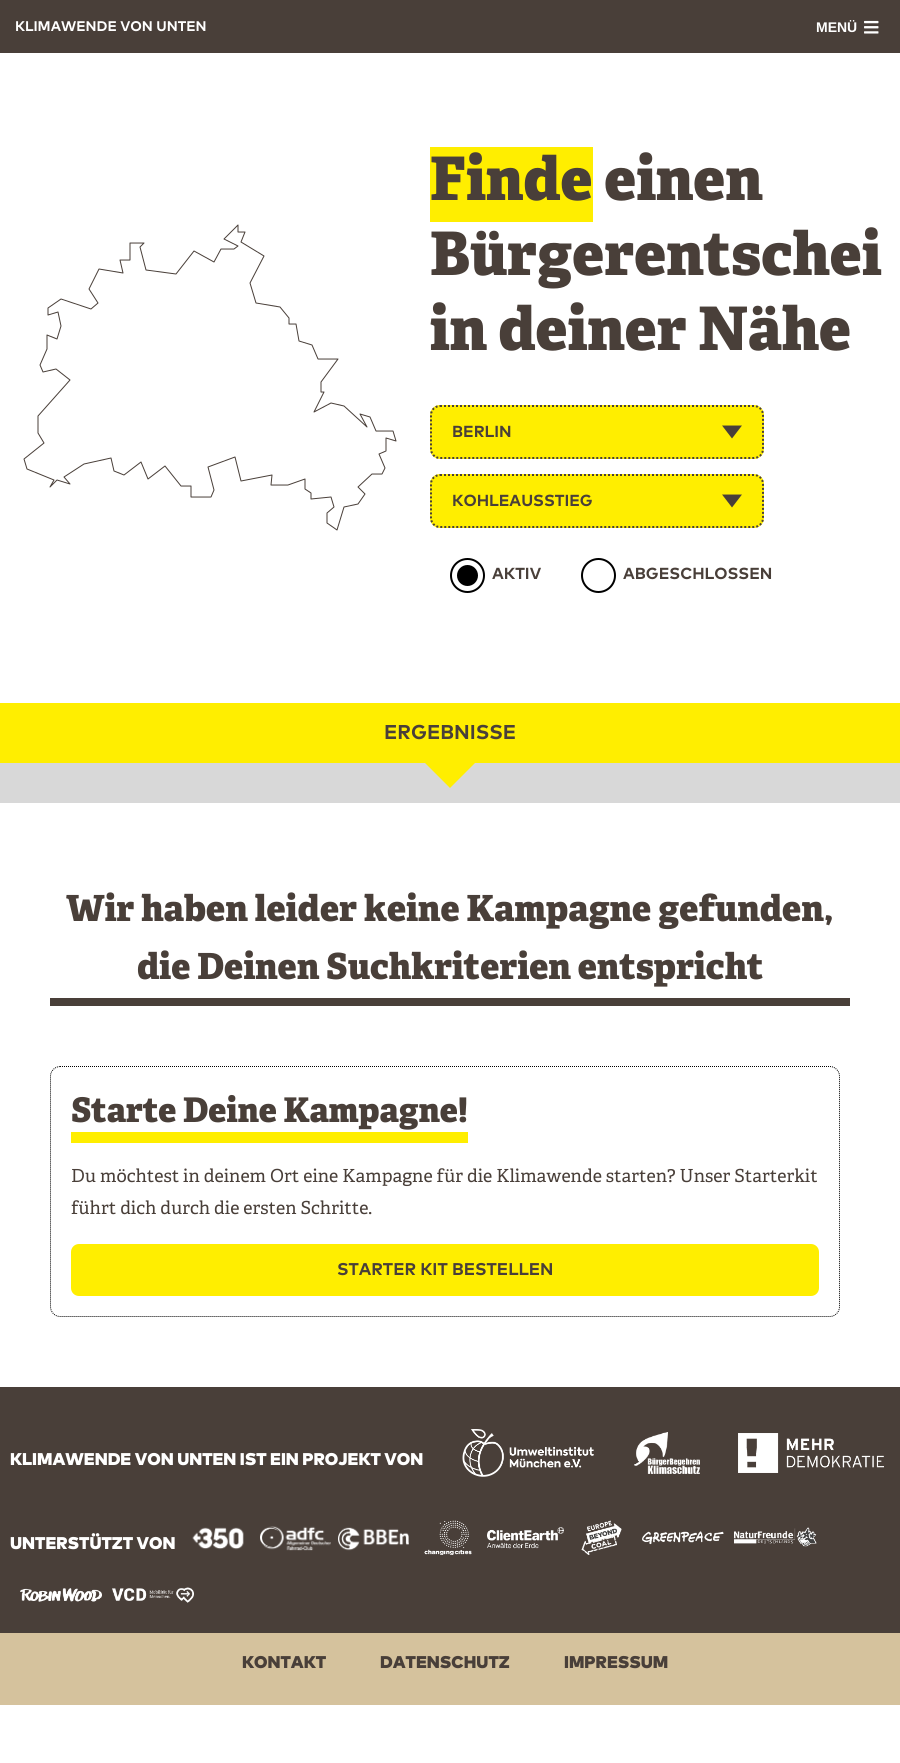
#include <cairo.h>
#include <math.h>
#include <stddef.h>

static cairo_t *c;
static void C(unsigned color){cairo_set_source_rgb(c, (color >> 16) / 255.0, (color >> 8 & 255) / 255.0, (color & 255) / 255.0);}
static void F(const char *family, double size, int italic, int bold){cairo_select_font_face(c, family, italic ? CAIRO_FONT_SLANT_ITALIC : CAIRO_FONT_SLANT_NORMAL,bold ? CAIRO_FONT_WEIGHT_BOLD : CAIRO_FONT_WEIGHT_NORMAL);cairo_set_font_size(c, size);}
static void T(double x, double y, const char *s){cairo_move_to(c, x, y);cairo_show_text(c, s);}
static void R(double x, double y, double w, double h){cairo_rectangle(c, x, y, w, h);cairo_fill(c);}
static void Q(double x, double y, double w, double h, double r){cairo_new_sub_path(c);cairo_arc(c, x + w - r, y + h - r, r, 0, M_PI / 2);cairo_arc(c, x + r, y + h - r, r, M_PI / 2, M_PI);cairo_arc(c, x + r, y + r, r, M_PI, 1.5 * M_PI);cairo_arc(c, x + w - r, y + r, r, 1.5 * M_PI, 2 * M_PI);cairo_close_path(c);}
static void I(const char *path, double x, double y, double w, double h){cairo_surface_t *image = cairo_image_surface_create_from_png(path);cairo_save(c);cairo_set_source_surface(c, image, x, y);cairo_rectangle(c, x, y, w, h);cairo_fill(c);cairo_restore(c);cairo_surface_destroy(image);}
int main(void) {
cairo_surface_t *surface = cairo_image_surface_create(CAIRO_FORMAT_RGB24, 900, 1763);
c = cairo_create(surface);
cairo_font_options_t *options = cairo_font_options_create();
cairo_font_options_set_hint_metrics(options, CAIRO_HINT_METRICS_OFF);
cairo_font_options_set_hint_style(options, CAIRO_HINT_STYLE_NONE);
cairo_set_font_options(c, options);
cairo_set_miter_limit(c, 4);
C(0xffffff);
cairo_paint(c);
C(0x493f39);
R(0,0,900,53);
F("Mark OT",14,0,1);
C(0xffffff);
T(15,31,"KLIMAWENDE VON UNTEN");
F("Liberation Sans",14,0,1);
T(816,32,"MENÜ");
I("1.png",864,20,15,14);
C(0xd8d8d8);
R(0,763,900,40);
I("2.png",23,224,374,307);
C(0xffee00);
R(430,147,163,75);
F("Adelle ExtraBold",60,0,0);
C(0x493f39);
T(430,200,"Finde einen");
T(430,275,"Bürgerentschei");
T(430,350,"in deiner Nähe");
C(0xffee00);
Q(430,405,334,54,10);
cairo_fill(c);
cairo_new_path(c);
cairo_move_to(c,440,406);
cairo_line_to(c,754,406);
cairo_curve_to(c,759,406,763,410,763,415);
cairo_line_to(c,763,449);
cairo_curve_to(c,763,454,759,458,754,458);
cairo_line_to(c,440,458);
cairo_curve_to(c,435,458,431,454,431,449);
cairo_line_to(c,431,415);
cairo_curve_to(c,431,410,435,406,440,406);
cairo_close_path(c);
C(0x493f39);
cairo_set_dash(c,(double[]){2,2},2,0);
cairo_stroke(c);
F("Mark OT",16,0,1);
T(452,437,"BERLIN");
cairo_new_path(c);
cairo_move_to(c,722,425.5);
cairo_line_to(c,742,425.5);
cairo_line_to(c,732,438.5);
cairo_close_path(c);
cairo_fill(c);
C(0xffee00);
Q(430,474,334,54,10);
cairo_fill(c);
cairo_new_path(c);
cairo_move_to(c,440,475);
cairo_line_to(c,754,475);
cairo_curve_to(c,759,475,763,479,763,484);
cairo_line_to(c,763,518);
cairo_curve_to(c,763,523,759,527,754,527);
cairo_line_to(c,440,527);
cairo_curve_to(c,435,527,431,523,431,518);
cairo_line_to(c,431,484);
cairo_curve_to(c,431,479,435,475,440,475);
cairo_close_path(c);
C(0x493f39);
cairo_stroke(c);
T(452,506,"KOHLEAUSSTIEG");
cairo_new_path(c);
cairo_move_to(c,722,494.5);
cairo_line_to(c,742,494.5);
cairo_line_to(c,732,507.5);
cairo_close_path(c);
cairo_fill(c);
cairo_arc(c,467.5,575.5,16.5,0,2 * M_PI);
C(0x000000);
cairo_set_dash(c,NULL,0,0);
cairo_stroke(c);
cairo_arc(c,467.5,575.5,10.5,0,2 * M_PI);
cairo_fill(c);
C(0x493f39);
T(492,579,"AKTIV");
cairo_new_path(c);
cairo_arc(c,598.5,575.5,16.5,0,2 * M_PI);
C(0x000000);
cairo_stroke(c);
C(0x493f39);
T(623,579,"ABGESCHLOSSEN");
C(0xffee00);
R(0,703,900,60);
F("Mark OT",20,0,1);
C(0x493f39);
T(384,739,"ERGEBNISSE");
C(0xffee00);
cairo_new_path(c);
cairo_move_to(c,425,763);
cairo_line_to(c,475,763);
cairo_line_to(c,450,788);
cairo_close_path(c);
cairo_fill(c);
C(0x493f39);
R(50,998,800,8);
F("Adelle ExtraBold",36,0,0);
T(66,921,"Wir haben leider keine Kampagne gefunden,");
T(137,979,"die Deinen Suchkriterien entspricht");
cairo_new_path(c);
cairo_move_to(c,60,1066.5);
cairo_line_to(c,830,1066.5);
cairo_curve_to(c,835,1066.5,839.5,1071,839.5,1076);
cairo_line_to(c,839.5,1307);
cairo_curve_to(c,839.5,1312,835,1316.5,830,1316.5);
cairo_line_to(c,60,1316.5);
cairo_curve_to(c,55,1316.5,50.5,1312,50.5,1307);
cairo_line_to(c,50.5,1076);
cairo_curve_to(c,50.5,1071,55,1066.5,60,1066.5);
cairo_close_path(c);
C(0x000000);
cairo_set_line_width(c,1);
cairo_set_dash(c,(double[]){1,1},2,0);
cairo_stroke(c);
F("Adelle ExtraBold",34,0,0);
C(0x493f39);
T(71,1122,"Starte Deine Kampagne!");
C(0xffee00);
R(71,1132,397,11);
F("Adelle",18,0,0);
C(0x493f39);
T(71,1182,"Du möchtest in deinem Ort eine Kampagne für die Klimawende starten? Unser Starterkit");
T(71,1214,"führt dich durch die ersten Schritte.");
C(0xffee00);
Q(71,1244,748,52,8);
cairo_fill(c);
F("Mark OT",17,0,1);
C(0x493f39);
T(337,1275,"STARTER KIT BESTELLEN");
R(0,1387,900,246);
F("Mark OT Black",17,0,0);
C(0xffffff);
T(10,1465,"KLIMAWENDE VON UNTEN IST EIN PROJEKT VON");
I("3.png",462,1429,132,48);
I("4.png",634,1432,66,42);
I("5.png",738,1433,146,40);
T(10,1549,"UNTERSTÜTZT VON");
I("6.png",192,1527,52,23);
I("7.png",260,1526,71,25);
I("8.png",338,1527,71,24);
I("9.png",424,1520,48,35);
I("10.png",487,1527,77,22);
I("11.png",581,1520,41,35);
I("12.png",642,1531,82,14);
I("13.png",734,1527,83,20);
I("14.png",20,1588,82,14);
I("15.png",112,1587,82,16);
C(0xd5c29d);
R(0,1633,900,72);
C(0x493f39);
T(242,1668,"KONTAKT");
T(380,1668,"DATENSCHUTZ");
T(564,1668,"IMPRESSUM");
cairo_surface_write_to_png(surface, "o.png");
cairo_font_options_destroy(options);
cairo_destroy(c);
cairo_surface_destroy(surface);
return 0;
}
